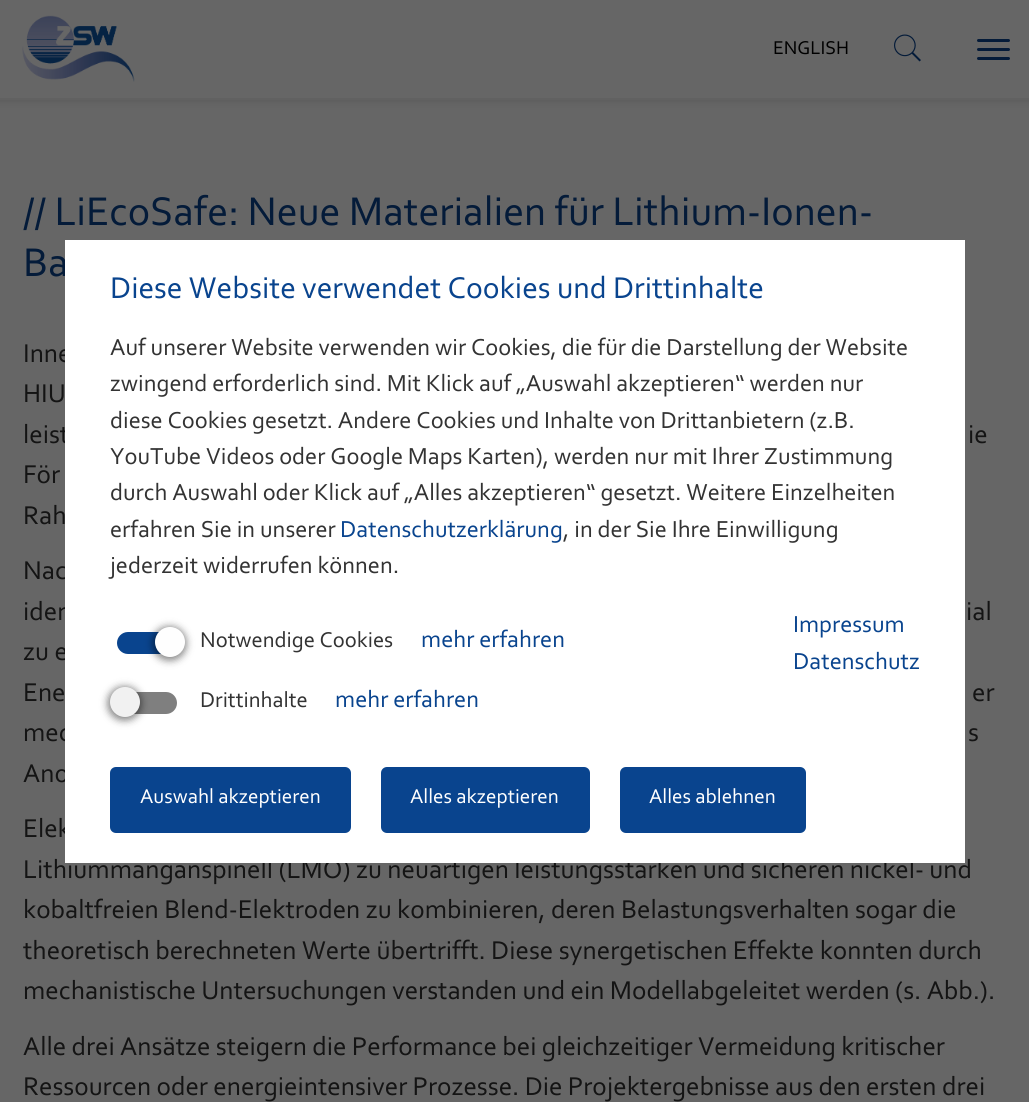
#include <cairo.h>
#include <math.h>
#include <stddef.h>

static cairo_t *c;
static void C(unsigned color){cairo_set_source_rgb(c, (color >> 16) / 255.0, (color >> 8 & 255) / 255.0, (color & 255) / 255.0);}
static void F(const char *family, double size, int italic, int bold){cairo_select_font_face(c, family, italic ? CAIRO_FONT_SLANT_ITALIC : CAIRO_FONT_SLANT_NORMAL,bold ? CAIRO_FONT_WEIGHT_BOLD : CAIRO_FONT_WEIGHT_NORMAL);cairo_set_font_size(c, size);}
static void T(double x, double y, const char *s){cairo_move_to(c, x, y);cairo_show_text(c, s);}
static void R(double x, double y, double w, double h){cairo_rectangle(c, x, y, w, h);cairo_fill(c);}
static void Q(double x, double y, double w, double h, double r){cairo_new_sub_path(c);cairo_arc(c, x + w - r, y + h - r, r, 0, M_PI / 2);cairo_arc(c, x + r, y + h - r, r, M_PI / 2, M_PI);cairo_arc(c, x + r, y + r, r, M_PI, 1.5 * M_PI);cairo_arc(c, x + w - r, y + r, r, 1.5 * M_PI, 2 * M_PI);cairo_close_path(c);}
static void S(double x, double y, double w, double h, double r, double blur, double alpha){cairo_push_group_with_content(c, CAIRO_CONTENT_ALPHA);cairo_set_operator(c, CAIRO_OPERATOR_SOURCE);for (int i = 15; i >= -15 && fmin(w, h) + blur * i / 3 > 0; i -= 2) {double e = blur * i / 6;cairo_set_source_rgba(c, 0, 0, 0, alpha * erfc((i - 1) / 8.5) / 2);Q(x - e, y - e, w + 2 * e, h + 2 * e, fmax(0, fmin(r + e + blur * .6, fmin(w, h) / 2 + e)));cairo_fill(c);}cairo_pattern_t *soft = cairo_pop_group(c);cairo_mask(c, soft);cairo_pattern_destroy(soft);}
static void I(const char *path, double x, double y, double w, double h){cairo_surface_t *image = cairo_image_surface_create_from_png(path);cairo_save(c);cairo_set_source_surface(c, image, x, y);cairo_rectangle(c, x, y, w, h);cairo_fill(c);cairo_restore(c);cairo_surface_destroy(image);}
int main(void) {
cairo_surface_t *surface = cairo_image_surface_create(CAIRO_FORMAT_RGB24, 1029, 1102);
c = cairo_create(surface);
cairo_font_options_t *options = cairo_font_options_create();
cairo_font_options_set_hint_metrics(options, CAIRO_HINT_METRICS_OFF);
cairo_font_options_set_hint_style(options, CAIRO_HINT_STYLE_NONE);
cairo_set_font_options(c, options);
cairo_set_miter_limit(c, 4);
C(0x666666);
cairo_paint(c);
C(0x000000);
S(-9,-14,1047,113,0,4.5,.2);
C(0x666666);
R(0,0,1029,98);
C(0x616161);
R(0,98,1029,2);
I("1.png",22,15,113,67);
F("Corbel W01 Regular",19.5,0,0);
C(0x000000);
T(773,54,"ENGLISH");
I("2.png",894,34,27,28);
C(0x041b39);
Q(977,39,33,3,1.5);
cairo_fill(c);
Q(977,48,33,3,1.5);
cairo_fill(c);
Q(977,57,33,3,1.5);
cairo_fill(c);
F("Corbel W01 Regular",42,0,0);
T(23,225,"// LiEcoSafe: Neue Materialien für Lithium-Ionen-");
T(23,276,"Ba");
F("Corbel W01 Regular",27,0,0);
C(0x141414);
T(23,362,"Inne");
T(23,402,"HIU");
T(23,443,"leist");
T(968,443,"ie");
T(23,483,"För");
T(23,524,"Rah");
T(23,579,"Nac");
T(23,620,"iden");
T(966,620,"ial");
T(23,660,"zu e");
T(23,701,"Ene");
T(972,701,"er");
T(23,741,"mec");
T(968,741,"s");
T(23,782,"Ano");
T(23,837,"Elek");
T(23,878,"Lithiummanganspinell (LMO) zu neuartigen leistungsstarken und sicheren nickel- und");
T(23,918,"kobaltfreien Blend-Elektroden zu kombinieren, deren Belastungsverhalten sogar die");
T(23,959,"theoretisch berechneten Werte übertrifft. Diese synergetischen Effekte konnten durch");
T(23,999,"mechanistische Untersuchungen verstanden und ein Modellabgeleitet werden (s. Abb.).");
T(23,1055,"Alle drei Ansätze steigern die Performance bei gleichzeitiger Vermeidung kritischer");
T(23,1095,"Ressourcen oder energieintensiver Prozesse. Die Projektergebnisse aus den ersten drei");
C(0xffffff);
R(65,240,900,623);
F("Corbel W01 Regular",31.5,0,0);
C(0x09448e);
T(110,298,"Diese Website verwendet Cookies und Drittinhalte");
F("Corbel W01 Regular",24.3,0,0);
C(0x333333);
T(110,355,"Auf unserer Website verwenden wir Cookies, die für die Darstellung der Website");
T(110,391,"zwingend erforderlich sind. Mit Klick auf „Auswahl akzeptieren“ werden nur");
T(110,428,"diese Cookies gesetzt. Andere Cookies und Inhalte von Drittanbietern (z.B.");
T(110,464,"YouTube Videos oder Google Maps Karten), werden nur mit Ihrer Zustimmung");
T(110,500,"durch Auswahl oder Klick auf „Alles akzeptieren“ gesetzt. Weitere Einzelheiten");
T(110,537,"erfahren Sie in unserer");
C(0x09448e);
T(340,537,"Datenschutzerklärung");
C(0x333333);
T(563,537,", in der Sie Ihre Einwilligung");
T(110,573,"jederzeit widerrufen können.");
C(0x09448e);
Q(117,632,60,22,11);
cairo_fill(c);
C(0x000000);
S(153,627,33,33,16.5,4,.5);
C(0xfefefe);
cairo_arc(c,170,642,15,0,2 * M_PI);
cairo_fill(c);
F("Corbel W01 Regular",22.5,0,0);
C(0x333333);
T(200,647,"Notwendige Cookies");
F("Corbel W01 Regular",24.3,0,0);
C(0x09448e);
T(421,647,"mehr erfahren");
T(793,632,"Impressum");
T(793,669,"Datenschutz");
C(0x7f7f7f);
Q(117,692,60,22,11);
cairo_fill(c);
C(0x000000);
S(108,687,33,33,16.5,4,.5);
C(0xf1f1f1);
cairo_arc(c,125,702,15,0,2 * M_PI);
cairo_fill(c);
F("Corbel W01 Regular",22.5,0,0);
C(0x333333);
T(200,707,"Drittinhalte");
F("Corbel W01 Regular",24.3,0,0);
C(0x09448e);
T(335,707,"mehr erfahren");
Q(110,767,241,66,6);
cairo_fill(c);
F("Corbel W01 Regular",21,0,0);
C(0xffffff);
T(140,803,"Auswahl akzeptieren");
C(0x09448e);
Q(381,767,209,66,6);
cairo_fill(c);
C(0xffffff);
T(410,803,"Alles akzeptieren");
C(0x09448e);
Q(620,767,186,66,6);
cairo_fill(c);
C(0xffffff);
T(649,803,"Alles ablehnen");
cairo_surface_write_to_png(surface, "o.png");
cairo_font_options_destroy(options);
cairo_destroy(c);
cairo_surface_destroy(surface);
return 0;
}
